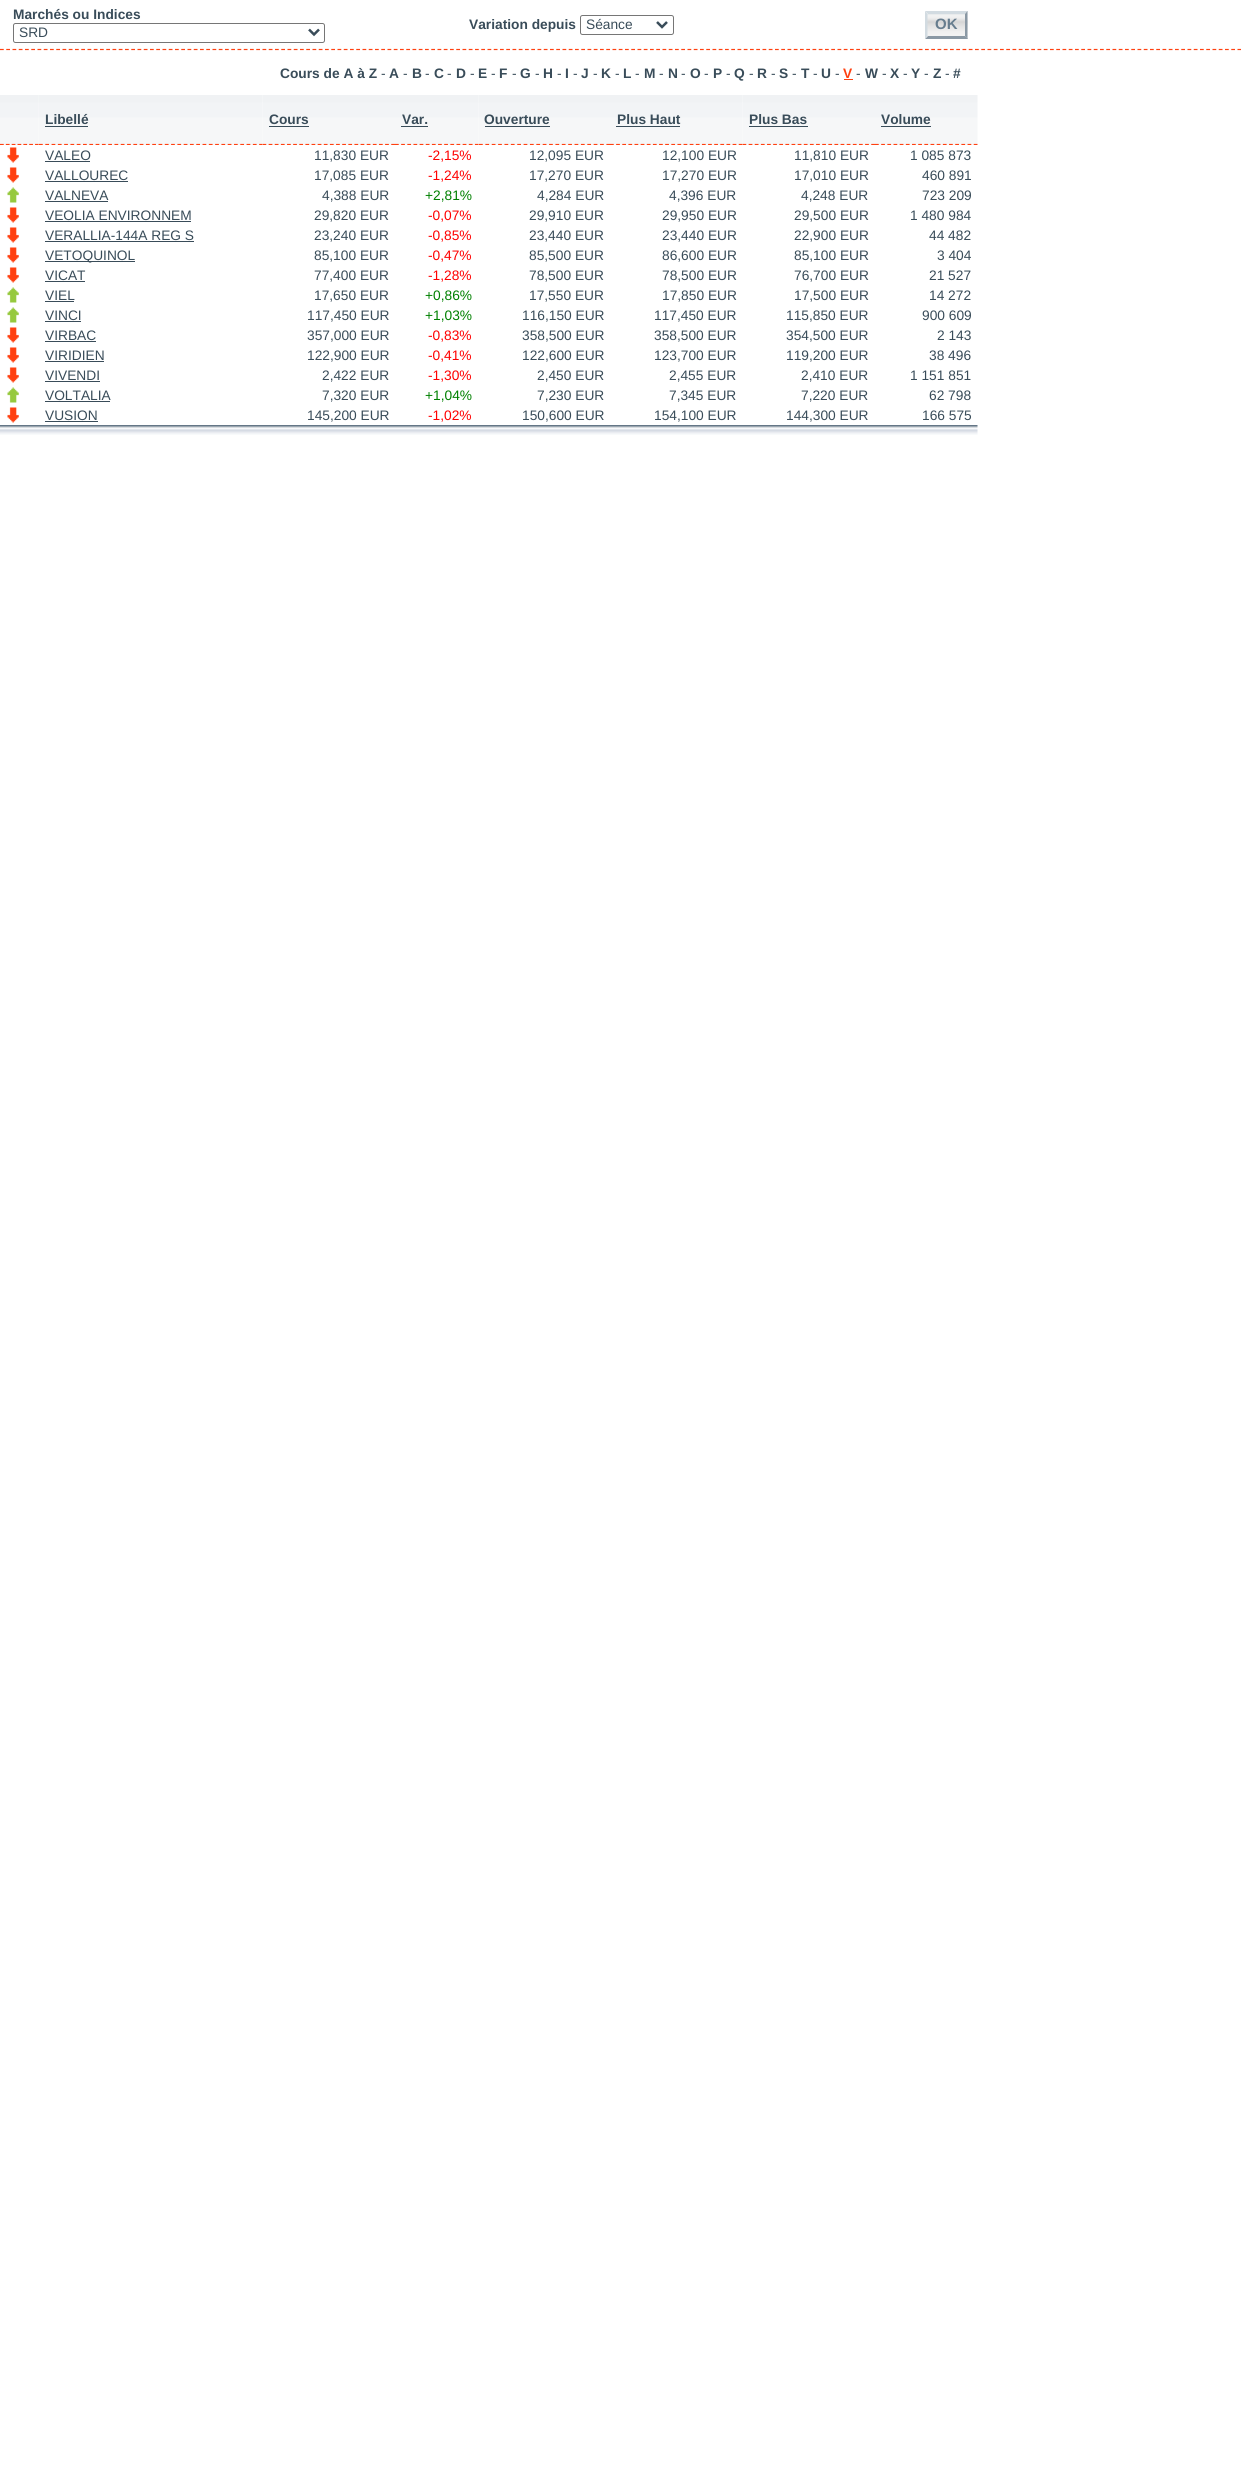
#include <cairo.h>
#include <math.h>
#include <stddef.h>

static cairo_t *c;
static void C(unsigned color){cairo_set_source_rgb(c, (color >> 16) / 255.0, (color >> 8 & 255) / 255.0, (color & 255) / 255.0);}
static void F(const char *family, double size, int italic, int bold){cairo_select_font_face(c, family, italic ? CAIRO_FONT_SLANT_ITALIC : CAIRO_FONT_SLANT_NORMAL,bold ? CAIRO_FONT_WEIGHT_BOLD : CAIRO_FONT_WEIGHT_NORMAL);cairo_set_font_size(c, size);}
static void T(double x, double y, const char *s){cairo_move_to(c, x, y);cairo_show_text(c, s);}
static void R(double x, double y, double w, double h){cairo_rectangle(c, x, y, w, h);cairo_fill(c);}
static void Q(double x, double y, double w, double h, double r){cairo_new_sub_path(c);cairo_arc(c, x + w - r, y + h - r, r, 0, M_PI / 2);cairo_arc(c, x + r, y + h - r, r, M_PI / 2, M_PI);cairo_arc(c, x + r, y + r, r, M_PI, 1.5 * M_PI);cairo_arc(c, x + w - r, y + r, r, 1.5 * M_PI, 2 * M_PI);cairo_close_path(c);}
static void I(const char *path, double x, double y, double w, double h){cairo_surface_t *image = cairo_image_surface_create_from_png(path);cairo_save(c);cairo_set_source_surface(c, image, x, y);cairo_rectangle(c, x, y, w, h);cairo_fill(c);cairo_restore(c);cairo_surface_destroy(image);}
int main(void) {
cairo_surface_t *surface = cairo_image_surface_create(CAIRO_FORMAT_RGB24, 1241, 2483);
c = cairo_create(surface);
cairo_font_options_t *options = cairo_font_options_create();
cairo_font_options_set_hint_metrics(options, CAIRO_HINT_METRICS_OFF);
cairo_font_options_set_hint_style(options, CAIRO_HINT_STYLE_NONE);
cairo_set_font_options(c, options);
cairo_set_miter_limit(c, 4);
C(0xffffff);
cairo_paint(c);
cairo_new_path(c);
cairo_move_to(c,0,49.5);
cairo_line_to(c,1241,49.5);
C(0xff4010);
cairo_set_line_width(c,1.2);
cairo_set_dash(c,(double[]){3.75,2.5},2,0);
cairo_stroke(c);
F("Liberation Sans",13.75,0,1);
C(0x394c59);
T(13,19,"Marchés ou Indices");
Q(13.5,23.5,311,19,2);
C(0x767676);
cairo_set_line_width(c,1);
cairo_set_dash(c,NULL,0,0);
cairo_stroke(c);
cairo_new_path(c);
cairo_move_to(c,309,29.5);
cairo_line_to(c,314,34.5);
cairo_line_to(c,319,29.5);
C(0x394c59);
cairo_set_line_width(c,2.5);
cairo_stroke(c);
F("Liberation Sans",13.75,0,0);
T(19,37,"SRD");
F("Liberation Sans",13.75,0,1);
T(469,29,"Variation depuis");
Q(580.5,15.5,93,19,2);
C(0x767676);
cairo_set_line_width(c,1);
cairo_stroke(c);
cairo_new_path(c);
cairo_move_to(c,657,22);
cairo_line_to(c,662,27);
cairo_line_to(c,667,22);
C(0x394c59);
cairo_set_line_width(c,2.5);
cairo_stroke(c);
F("Liberation Sans",13.75,0,0);
T(586,29,"Séance");
I("1.png",925,11,43,28);
C(0xd2dbe1);
cairo_new_path(c);
cairo_move_to(c,925,11);
cairo_line_to(c,968,11);
cairo_line_to(c,965,14);
cairo_line_to(c,928,14);
cairo_close_path(c);
cairo_fill(c);
C(0x8a98a4);
cairo_new_path(c);
cairo_move_to(c,967.5,11);
cairo_line_to(c,967.5,39);
cairo_line_to(c,965,36);
cairo_line_to(c,965,14);
cairo_close_path(c);
cairo_fill(c);
cairo_new_path(c);
cairo_move_to(c,968,39);
cairo_line_to(c,925,39);
cairo_line_to(c,928,36);
cairo_line_to(c,965,36);
cairo_close_path(c);
cairo_fill(c);
C(0xd2dbe1);
cairo_new_path(c);
cairo_move_to(c,925,39);
cairo_line_to(c,925,11);
cairo_line_to(c,927.5,14);
cairo_line_to(c,927.5,36);
cairo_close_path(c);
cairo_fill(c);
F("Liberation Sans",15,0,1);
C(0x677d8e);
T(935,29,"OK");
F("Liberation Sans",13.75,0,1);
C(0x394c59);
T(280,78,"Cours de A à Z");
F("Liberation Sans",13.75,0,0);
T(381,78,"-");
F("Liberation Sans",13.75,0,1);
T(389,78,"A");
F("Liberation Sans",13.75,0,0);
T(403,78,"-");
F("Liberation Sans",13.75,0,1);
T(412,78,"B");
F("Liberation Sans",13.75,0,0);
T(425,78,"-");
F("Liberation Sans",13.75,0,1);
T(434,78,"C");
F("Liberation Sans",13.75,0,0);
T(447,78,"-");
F("Liberation Sans",13.75,0,1);
T(456,78,"D");
F("Liberation Sans",13.75,0,0);
T(470,78,"-");
F("Liberation Sans",13.75,0,1);
T(478,78,"E");
F("Liberation Sans",13.75,0,0);
T(491,78,"-");
F("Liberation Sans",13.75,0,1);
T(499,78,"F");
F("Liberation Sans",13.75,0,0);
T(512,78,"-");
F("Liberation Sans",13.75,0,1);
T(520,78,"G");
F("Liberation Sans",13.75,0,0);
T(535,78,"-");
F("Liberation Sans",13.75,0,1);
T(543,78,"H");
F("Liberation Sans",13.75,0,0);
T(557,78,"-");
F("Liberation Sans",13.75,0,1);
T(565,78,"I");
F("Liberation Sans",13.75,0,0);
T(573,78,"-");
F("Liberation Sans",13.75,0,1);
T(581,78,"J");
F("Liberation Sans",13.75,0,0);
T(593,78,"-");
F("Liberation Sans",13.75,0,1);
T(601,78,"K");
F("Liberation Sans",13.75,0,0);
T(615,78,"-");
F("Liberation Sans",13.75,0,1);
T(623,78,"L");
F("Liberation Sans",13.75,0,0);
T(635,78,"-");
F("Liberation Sans",13.75,0,1);
T(644,78,"M");
F("Liberation Sans",13.75,0,0);
T(659,78,"-");
F("Liberation Sans",13.75,0,1);
T(668,78,"N");
F("Liberation Sans",13.75,0,0);
T(681,78,"-");
F("Liberation Sans",13.75,0,1);
T(690,78,"O");
F("Liberation Sans",13.75,0,0);
T(704,78,"-");
F("Liberation Sans",13.75,0,1);
T(713,78,"P");
F("Liberation Sans",13.75,0,0);
T(726,78,"-");
F("Liberation Sans",13.75,0,1);
T(734,78,"Q");
F("Liberation Sans",13.75,0,0);
T(749,78,"-");
F("Liberation Sans",13.75,0,1);
T(757,78,"R");
F("Liberation Sans",13.75,0,0);
T(771,78,"-");
F("Liberation Sans",13.75,0,1);
T(779,78,"S");
F("Liberation Sans",13.75,0,0);
T(792,78,"-");
F("Liberation Sans",13.75,0,1);
T(801,78,"T");
F("Liberation Sans",13.75,0,0);
T(813,78,"-");
F("Liberation Sans",13.75,0,1);
T(821,78,"U");
F("Liberation Sans",13.75,0,0);
T(835,78,"-");
F("Liberation Sans",13.75,0,1);
C(0xff4010);
T(843,78,"V");
R(844,79,9,1);
F("Liberation Sans",13.75,0,0);
C(0x394c59);
T(856,78,"-");
F("Liberation Sans",13.75,0,1);
T(865,78,"W");
F("Liberation Sans",13.75,0,0);
T(882,78,"-");
F("Liberation Sans",13.75,0,1);
T(890,78,"X");
F("Liberation Sans",13.75,0,0);
T(903,78,"-");
F("Liberation Sans",13.75,0,1);
T(911,78,"Y");
F("Liberation Sans",13.75,0,0);
T(924,78,"-");
F("Liberation Sans",13.75,0,1);
T(933,78,"Z");
F("Liberation Sans",13.75,0,0);
T(945,78,"-");
F("Liberation Sans",13.75,0,1);
T(953,78,"#");
I("2.png",0,95,39,50);
cairo_new_path(c);
cairo_move_to(c,0,144.5);
cairo_line_to(c,39,144.5);
C(0xff4010);
cairo_set_line_width(c,1.2);
cairo_set_dash(c,(double[]){3.75,2.09},2,0);
cairo_stroke(c);
I("3.png",38,95,225,50);
cairo_new_path(c);
cairo_move_to(c,39,144.5);
cairo_line_to(c,262.5,144.5);
cairo_set_dash(c,(double[]){3.75,2.54},2,0);
cairo_stroke(c);
C(0x394c59);
T(45,124,"Libellé");
R(45,126,43,1);
I("4.png",262,95,133,50);
cairo_new_path(c);
cairo_move_to(c,262.5,144.5);
cairo_line_to(c,395,144.5);
C(0xff4010);
cairo_set_dash(c,(double[]){3.75,2.38},2,0);
cairo_stroke(c);
C(0x394c59);
T(269,124,"Cours");
R(269,126,40,1);
I("5.png",395,95,84,50);
cairo_new_path(c);
cairo_move_to(c,395,144.5);
cairo_line_to(c,479,144.5);
C(0xff4010);
cairo_set_dash(c,(double[]){3.75,2.4},2,0);
cairo_stroke(c);
C(0x394c59);
T(402,124,"Var.");
R(401,126,27,1);
I("6.png",478,95,132,50);
cairo_new_path(c);
cairo_move_to(c,479,144.5);
cairo_line_to(c,610,144.5);
C(0xff4010);
cairo_set_dash(c,(double[]){3.75,2.62},2,0);
cairo_stroke(c);
C(0x394c59);
T(484,124,"Ouverture");
R(485,126,65,1);
I("7.png",610,95,133,50);
cairo_new_path(c);
cairo_move_to(c,610,144.5);
cairo_line_to(c,742.5,144.5);
C(0xff4010);
cairo_set_dash(c,(double[]){3.75,2.38},2,0);
cairo_stroke(c);
C(0x394c59);
T(617,124,"Plus Haut");
R(616,126,64,1);
I("8.png",742,95,133,50);
cairo_new_path(c);
cairo_move_to(c,742.5,144.5);
cairo_line_to(c,875,144.5);
C(0xff4010);
cairo_stroke(c);
C(0x394c59);
T(749,124,"Plus Bas");
R(749,126,59,1);
I("9.png",875,95,103,50);
cairo_new_path(c);
cairo_move_to(c,875,144.5);
cairo_line_to(c,977.5,144.5);
C(0xff4010);
cairo_set_dash(c,(double[]){3.75,2.42},2,0);
cairo_stroke(c);
C(0x394c59);
T(881,124,"Volume");
R(881,126,50,1);
C(0xffffff);
R(0,145,978,1);
I("10.png",7,147,12,16);
F("Liberation Sans",13.75,0,0);
C(0x394c59);
T(45,160,"VALEO");
R(45,161,45,1);
T(314,160,"11,830 EUR");
C(0xff0000);
T(428,160,"-2,15%");
C(0x394c59);
T(529,160,"12,095 EUR");
T(662,160,"12,100 EUR");
T(794,160,"11,810 EUR");
T(910,160,"1 085 873");
I("10.png",7,167,12,16);
T(45,180,"VALLOUREC");
R(45,181,83,1);
T(314,180,"17,085 EUR");
C(0xff0000);
T(428,180,"-1,24%");
C(0x394c59);
T(529,180,"17,270 EUR");
T(662,180,"17,270 EUR");
T(794,180,"17,010 EUR");
T(922,180,"460 891");
I("11.png",7,187,12,16);
T(45,200,"VALNEVA");
R(45,201,63,1);
T(322,200,"4,388 EUR");
C(0x008000);
T(425,200,"+2,81%");
C(0x394c59);
T(537,200,"4,284 EUR");
T(669,200,"4,396 EUR");
T(801,200,"4,248 EUR");
T(922,200,"723 209");
I("10.png",7,207,12,16);
T(45,220,"VEOLIA ENVIRONNEM");
R(45,221,146,1);
T(314,220,"29,820 EUR");
C(0xff0000);
T(428,220,"-0,07%");
C(0x394c59);
T(529,220,"29,910 EUR");
T(662,220,"29,950 EUR");
T(794,220,"29,500 EUR");
T(910,220,"1 480 984");
I("10.png",7,227,12,16);
T(45,240,"VERALLIA-144A REG S");
R(45,241,149,1);
T(314,240,"23,240 EUR");
C(0xff0000);
T(428,240,"-0,85%");
C(0x394c59);
T(529,240,"23,440 EUR");
T(662,240,"23,440 EUR");
T(794,240,"22,900 EUR");
T(929,240,"44 482");
I("10.png",7,247,12,16);
R(45,261,90,1);
T(45,260,"VETOQUINOL");
T(314,260,"85,100 EUR");
C(0xff0000);
T(428,260,"-0,47%");
C(0x394c59);
T(529,260,"85,500 EUR");
T(662,260,"86,600 EUR");
T(794,260,"85,100 EUR");
T(937,260,"3 404");
I("10.png",7,267,12,16);
T(45,280,"VICAT");
R(45,281,40,1);
T(314,280,"77,400 EUR");
C(0xff0000);
T(428,280,"-1,28%");
C(0x394c59);
T(529,280,"78,500 EUR");
T(662,280,"78,500 EUR");
T(794,280,"76,700 EUR");
T(929,280,"21 527");
I("11.png",7,287,12,16);
T(45,300,"VIEL");
R(45,301,29,1);
T(314,300,"17,650 EUR");
C(0x008000);
T(425,300,"+0,86%");
C(0x394c59);
T(529,300,"17,550 EUR");
T(662,300,"17,850 EUR");
T(794,300,"17,500 EUR");
T(929,300,"14 272");
I("11.png",7,307,12,16);
T(45,320,"VINCI");
R(45,321,36,1);
T(307,320,"117,450 EUR");
C(0x008000);
T(425,320,"+1,03%");
C(0x394c59);
T(522,320,"116,150 EUR");
T(654,320,"117,450 EUR");
T(786,320,"115,850 EUR");
T(922,320,"900 609");
I("10.png",7,327,12,16);
T(45,340,"VIRBAC");
R(45,341,51,1);
T(307,340,"357,000 EUR");
C(0xff0000);
T(428,340,"-0,83%");
C(0x394c59);
T(522,340,"358,500 EUR");
T(654,340,"358,500 EUR");
T(786,340,"354,500 EUR");
T(937,340,"2 143");
I("10.png",7,347,12,16);
T(45,360,"VIRIDIEN");
R(45,361,59,1);
T(307,360,"122,900 EUR");
C(0xff0000);
T(428,360,"-0,41%");
C(0x394c59);
T(522,360,"122,600 EUR");
T(654,360,"123,700 EUR");
T(786,360,"119,200 EUR");
T(929,360,"38 496");
I("10.png",7,367,12,16);
T(45,380,"VIVENDI");
R(45,381,55,1);
T(322,380,"2,422 EUR");
C(0xff0000);
T(428,380,"-1,30%");
C(0x394c59);
T(537,380,"2,450 EUR");
T(669,380,"2,455 EUR");
T(801,380,"2,410 EUR");
T(910,380,"1 151 851");
I("11.png",7,387,12,16);
T(45,400,"VOLTALIA");
R(45,401,65,1);
T(322,400,"7,320 EUR");
C(0x008000);
T(425,400,"+1,04%");
C(0x394c59);
T(537,400,"7,230 EUR");
T(669,400,"7,345 EUR");
T(801,400,"7,220 EUR");
T(929,400,"62 798");
I("10.png",7,407,12,16);
T(45,420,"VUSION");
R(45,421,53,1);
T(307,420,"145,200 EUR");
C(0xff0000);
T(428,420,"-1,02%");
C(0x394c59);
T(522,420,"150,600 EUR");
T(654,420,"154,100 EUR");
T(786,420,"144,300 EUR");
T(922,420,"166 575");
I("12.png",0,425,978,10);
cairo_surface_write_to_png(surface, "o.png");
cairo_font_options_destroy(options);
cairo_destroy(c);
cairo_surface_destroy(surface);
return 0;
}
